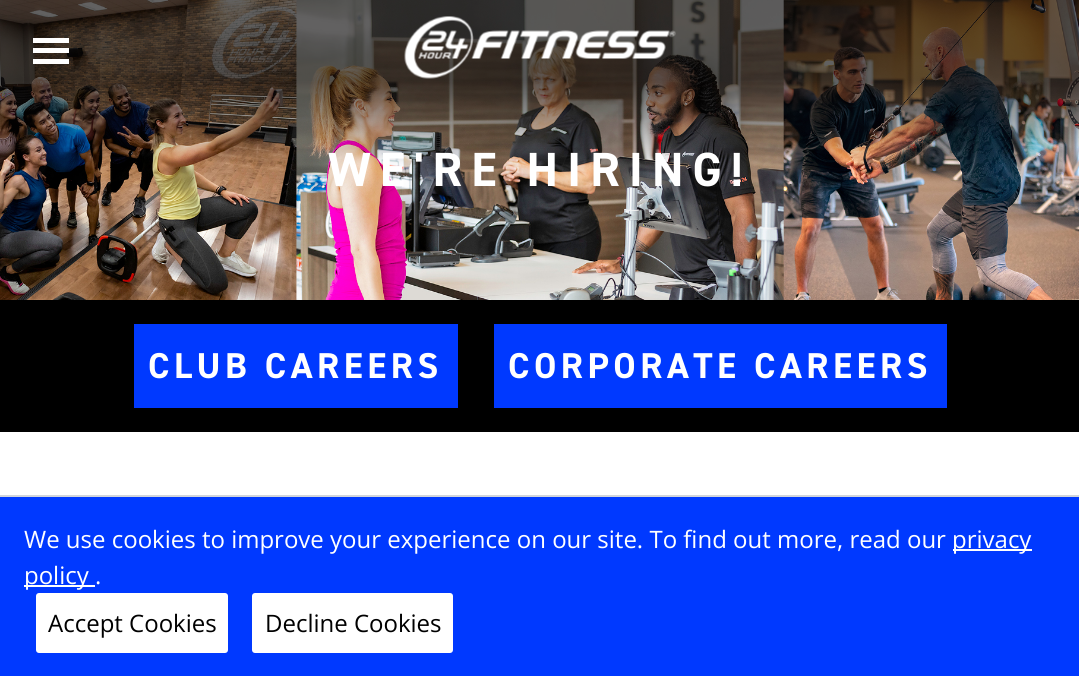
#include <cairo.h>
#include <math.h>
#include <stddef.h>

static cairo_t *c;
static void C(unsigned color){cairo_set_source_rgb(c, (color >> 16) / 255.0, (color >> 8 & 255) / 255.0, (color & 255) / 255.0);}
static void F(const char *family, double size, int italic, int bold){cairo_select_font_face(c, family, italic ? CAIRO_FONT_SLANT_ITALIC : CAIRO_FONT_SLANT_NORMAL,bold ? CAIRO_FONT_WEIGHT_BOLD : CAIRO_FONT_WEIGHT_NORMAL);cairo_set_font_size(c, size);}
static void T(double x, double y, const char *s){cairo_move_to(c, x, y);cairo_show_text(c, s);}
static void L(double x, double y, const char *s, double letter, double word){cairo_move_to(c, x, y);while (*s) {char ch[5] = {0};int n = 0;do ch[n++] = *s++; while ((*s & 0xC0) == 0x80);cairo_show_text(c, ch);cairo_rel_move_to(c, letter + word * (*ch == ' '), 0);}}
static void R(double x, double y, double w, double h){cairo_rectangle(c, x, y, w, h);cairo_fill(c);}
static void Q(double x, double y, double w, double h, double r){cairo_new_sub_path(c);cairo_arc(c, x + w - r, y + h - r, r, 0, M_PI / 2);cairo_arc(c, x + r, y + h - r, r, M_PI / 2, M_PI);cairo_arc(c, x + r, y + r, r, M_PI, 1.5 * M_PI);cairo_arc(c, x + w - r, y + r, r, 1.5 * M_PI, 2 * M_PI);cairo_close_path(c);}
static void I(const char *path, double x, double y, double w, double h){cairo_surface_t *image = cairo_image_surface_create_from_png(path);cairo_save(c);cairo_set_source_surface(c, image, x, y);cairo_rectangle(c, x, y, w, h);cairo_fill(c);cairo_restore(c);cairo_surface_destroy(image);}
int main(void) {
cairo_surface_t *surface = cairo_image_surface_create(CAIRO_FORMAT_RGB24, 1079, 676);
c = cairo_create(surface);
cairo_font_options_t *options = cairo_font_options_create();
cairo_font_options_set_hint_metrics(options, CAIRO_HINT_METRICS_OFF);
cairo_font_options_set_hint_style(options, CAIRO_HINT_STYLE_NONE);
cairo_set_font_options(c, options);
cairo_set_miter_limit(c, 4);
C(0xffffff);
cairo_paint(c);
I("2.png",0,0,1079,300);
C(0xffffff);
R(33,38,36,5);
R(33,48,36,5);
R(33,59,36,5);
I("1.png",404,16,272,63);
F("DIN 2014",48,0,1);
L(328,186,"WE'RE HIRING!",9,0);
C(0x000000);
R(0,300,1079,132);
C(0x0039ff);
R(134,324,324,84);
F("DIN 2014",36,0,1);
C(0xffffff);
L(148,378,"CLUB CAREERS",4.5,0);
C(0x0039ff);
R(494,324,453,84);
C(0xffffff);
L(508,378,"CORPORATE CAREERS",4.5,0);
C(0x0039ff);
R(0,497,1079,179);
C(0xd1d5db);
R(0,495,1079,2);
F("Open Sans",24,0,0);
C(0xffffff);
T(24,548,"We use cookies to improve your experience on our site. To find out more, read our");
R(953,549,79,2);
T(952,548,"privacy");
R(24,585,71,2);
T(24,584,"policy .");
Q(36,593,192,60,3);
cairo_fill(c);
C(0x000000);
T(48,632,"Accept Cookies");
C(0xffffff);
Q(252,593,201,60,3);
cairo_fill(c);
C(0x000000);
T(265,632,"Decline Cookies");
cairo_surface_write_to_png(surface, "o.png");
cairo_font_options_destroy(options);
cairo_destroy(c);
cairo_surface_destroy(surface);
return 0;
}
